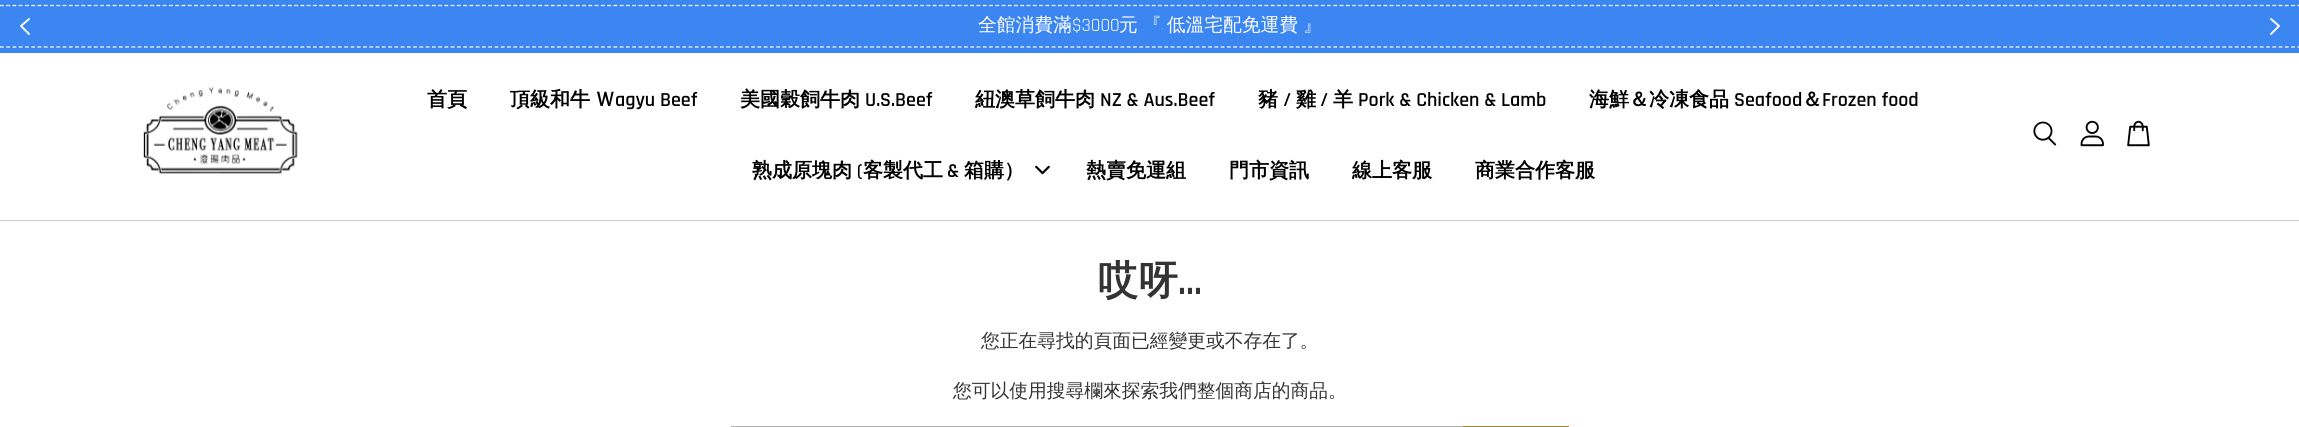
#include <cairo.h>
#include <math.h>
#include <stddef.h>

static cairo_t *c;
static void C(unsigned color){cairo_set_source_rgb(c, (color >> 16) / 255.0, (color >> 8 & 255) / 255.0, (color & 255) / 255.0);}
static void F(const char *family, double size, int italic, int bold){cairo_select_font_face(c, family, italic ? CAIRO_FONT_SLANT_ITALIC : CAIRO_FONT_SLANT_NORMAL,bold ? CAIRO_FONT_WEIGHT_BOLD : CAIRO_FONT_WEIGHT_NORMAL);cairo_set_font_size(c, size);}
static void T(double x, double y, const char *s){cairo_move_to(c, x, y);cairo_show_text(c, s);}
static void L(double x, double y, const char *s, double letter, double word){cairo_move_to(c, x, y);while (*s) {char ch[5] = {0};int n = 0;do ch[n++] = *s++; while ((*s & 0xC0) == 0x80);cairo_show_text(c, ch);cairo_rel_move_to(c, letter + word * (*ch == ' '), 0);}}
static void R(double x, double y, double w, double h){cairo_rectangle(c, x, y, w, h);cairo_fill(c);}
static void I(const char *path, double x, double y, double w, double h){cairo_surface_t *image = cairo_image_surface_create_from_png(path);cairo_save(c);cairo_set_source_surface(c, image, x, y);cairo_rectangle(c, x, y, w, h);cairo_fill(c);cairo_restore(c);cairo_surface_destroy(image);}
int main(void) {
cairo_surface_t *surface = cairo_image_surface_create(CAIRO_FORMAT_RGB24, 2299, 427);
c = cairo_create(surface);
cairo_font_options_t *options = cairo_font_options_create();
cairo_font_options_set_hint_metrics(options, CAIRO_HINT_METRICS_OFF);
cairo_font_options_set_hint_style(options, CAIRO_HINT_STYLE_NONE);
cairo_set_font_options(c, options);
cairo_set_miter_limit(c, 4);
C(0xffffff);
cairo_paint(c);
C(0x3c86f2);
R(0,0,2299,53);
cairo_new_path(c);
cairo_move_to(c,0,5.5);
cairo_line_to(c,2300,5.5);
C(0xffffff);
cairo_set_line_width(c,1.2);
cairo_set_dash(c,(double[]){3.75,2.51},2,0);
cairo_stroke(c);
cairo_new_path(c);
cairo_move_to(c,0,47);
cairo_line_to(c,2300,47);
cairo_stroke(c);
cairo_new_path(c);
cairo_move_to(c,29,19);
cairo_line_to(c,21,26);
cairo_line_to(c,29,34);
cairo_set_line_width(c,1.9);
cairo_set_line_cap(c,CAIRO_LINE_CAP_ROUND);
cairo_set_line_join(c,CAIRO_LINE_JOIN_ROUND);
cairo_set_dash(c,NULL,0,0);
cairo_stroke(c);
F("WenQuanYi Zen Hei Medium",18.75,0,0);
T(978,31,"全館消費滿");
F("Rajdhani",18.75,0,0);
T(1072,31,"$3000");
F("WenQuanYi Zen Hei Medium",18.75,0,0);
L(1119,31,"元 『 低溫宅配免運費 』",0,-.5);
cairo_new_path(c);
cairo_move_to(c,2271,19);
cairo_line_to(c,2279,26);
cairo_line_to(c,2271,34);
cairo_stroke(c);
C(0xcccccc);
R(0,220,2299,1);
I("1.png",143,87,155,87);
F("WenQuanYi Zen Hei",20,0,1);
C(0x000000);
T(427,106,"首頁");
T(510,106,"頂級和牛");
T(595,106,"Ｗ");
F("Rajdhani SemiBold",20,0,0);
T(615,106,"agyu Beef");
F("WenQuanYi Zen Hei",20,0,1);
T(740,106,"美國穀飼牛肉");
F("Rajdhani SemiBold",20,0,0);
T(865,106,"U.S.Beef");
F("WenQuanYi Zen Hei",20,0,1);
T(975,106,"紐澳草飼牛肉");
F("Rajdhani SemiBold",20,0,0);
T(1100,106,"NZ & Aus.Beef");
F("WenQuanYi Zen Hei",20,0,1);
T(1258,106,"豬");
F("Rajdhani SemiBold",20,0,0);
T(1283,106,"/");
F("WenQuanYi Zen Hei",20,0,1);
T(1296,106,"雞");
F("Rajdhani SemiBold",20,0,0);
T(1320,106,"/");
F("WenQuanYi Zen Hei",20,0,1);
T(1333,106,"羊");
F("Rajdhani SemiBold",20,0,0);
T(1358,106,"Pork & Chicken & Lamb");
F("WenQuanYi Zen Hei",20,0,1);
T(1589,106,"海鮮＆冷凍食品");
F("Rajdhani SemiBold",20,0,0);
T(1734,106,"Seafood");
F("WenQuanYi Zen Hei",20,0,1);
T(1802,106,"＆");
F("Rajdhani SemiBold",20,0,0);
T(1822,106,"Frozen food");
F("WenQuanYi Zen Hei",20,0,1);
T(752,177,"熟成原塊肉");
F("Rajdhani SemiBold",20,0,0);
T(857,177,"(");
F("WenQuanYi Zen Hei",20,0,1);
T(863,177,"客製代工");
F("Rajdhani SemiBold",20,0,0);
T(947,177,"&");
F("WenQuanYi Zen Hei",20,0,1);
T(964,177,"箱購）");
I("2.png",1035,165,15,10);
T(1086,177,"熱賣免運組");
T(1229,177,"門市資訊");
T(1352,177,"線上客服");
T(1475,177,"商業合作客服");
I("3.png",2033,121,24,25);
I("4.png",2080,120,24,27);
I("5.png",2127,120,23,27);
F("WenQuanYi Zen Hei",40,0,1);
C(0x333333);
T(1098,294,"哎呀");
F("Rajdhani SemiBold",40,0,0);
T(1178,294,"...");
F("WenQuanYi Zen Hei Medium",18.75,0,0);
T(981,347,"您正在尋找的頁面已經變更或不存在了。");
T(953,397,"您可以使用搜尋欄來探索我們整個商店的商品。");
cairo_rectangle(c,731.5,426.5,731,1);
C(0xb1b1b1);
cairo_set_line_width(c,1);
cairo_set_line_cap(c,CAIRO_LINE_CAP_BUTT);
cairo_set_line_join(c,CAIRO_LINE_JOIN_MITER);
cairo_stroke(c);
C(0x9e8137);
R(1463,426,106,1);
cairo_surface_write_to_png(surface, "o.png");
cairo_font_options_destroy(options);
cairo_destroy(c);
cairo_surface_destroy(surface);
return 0;
}
